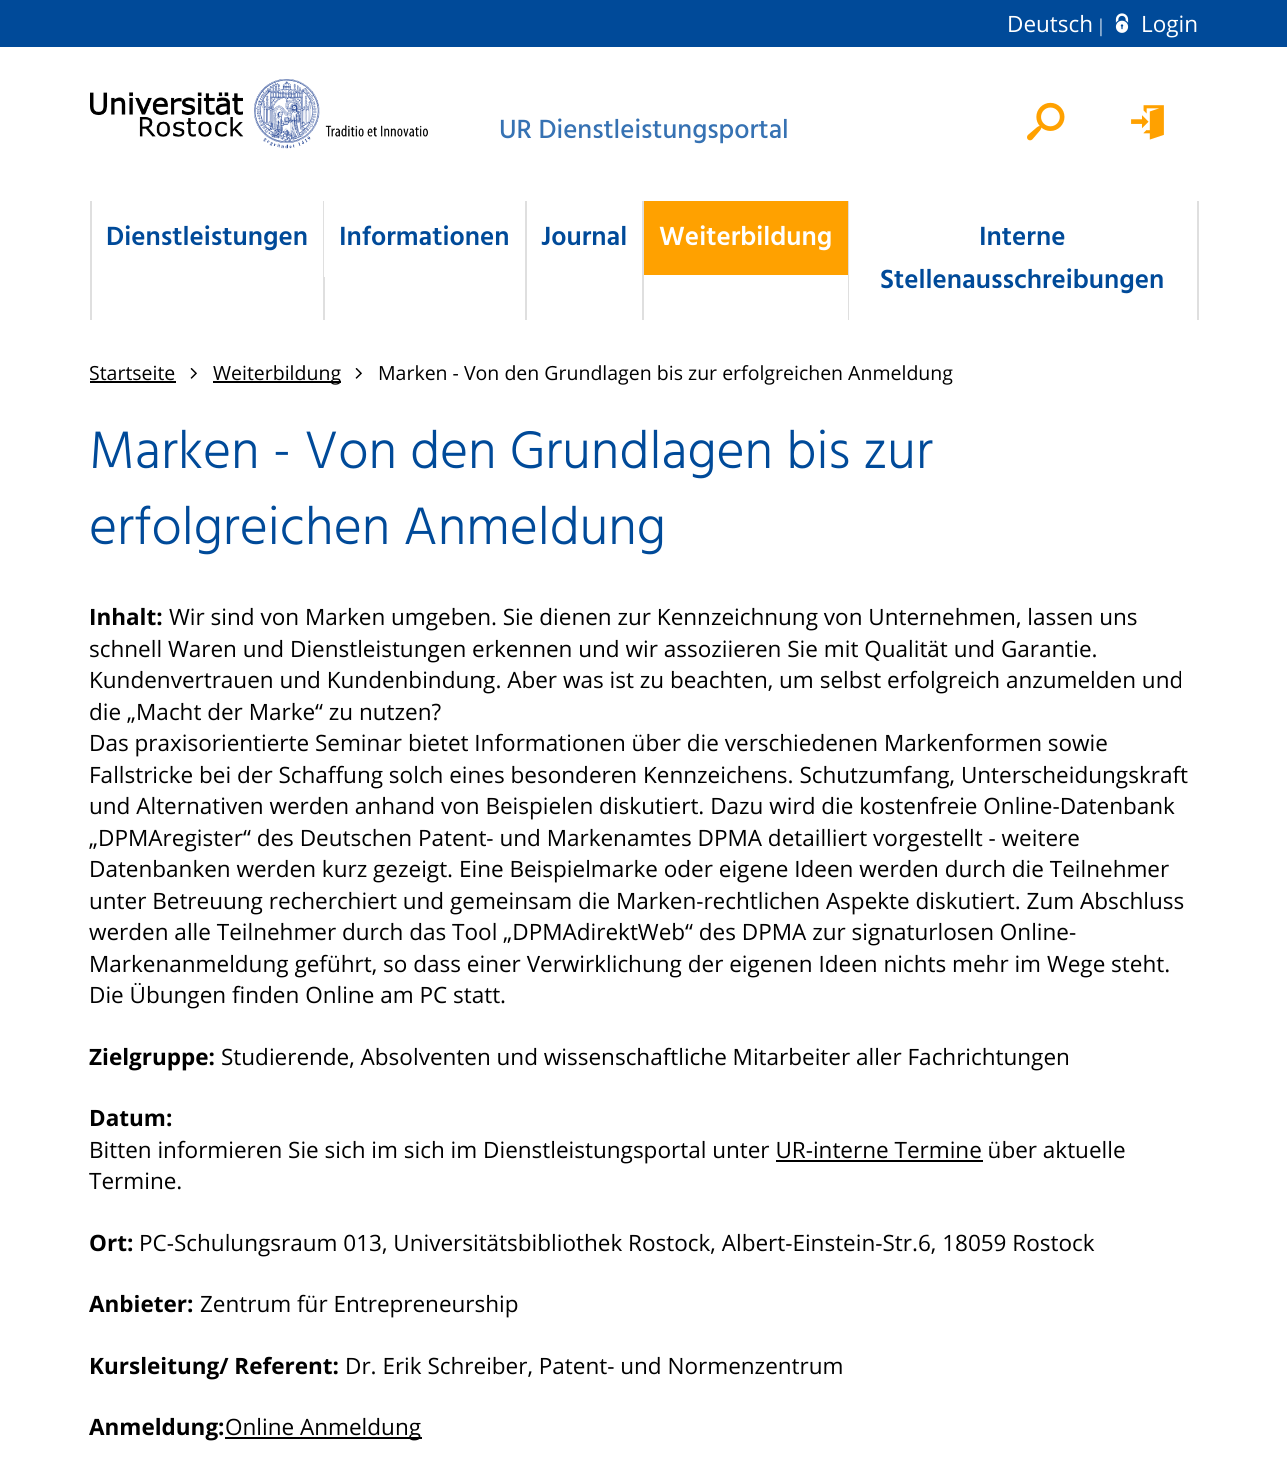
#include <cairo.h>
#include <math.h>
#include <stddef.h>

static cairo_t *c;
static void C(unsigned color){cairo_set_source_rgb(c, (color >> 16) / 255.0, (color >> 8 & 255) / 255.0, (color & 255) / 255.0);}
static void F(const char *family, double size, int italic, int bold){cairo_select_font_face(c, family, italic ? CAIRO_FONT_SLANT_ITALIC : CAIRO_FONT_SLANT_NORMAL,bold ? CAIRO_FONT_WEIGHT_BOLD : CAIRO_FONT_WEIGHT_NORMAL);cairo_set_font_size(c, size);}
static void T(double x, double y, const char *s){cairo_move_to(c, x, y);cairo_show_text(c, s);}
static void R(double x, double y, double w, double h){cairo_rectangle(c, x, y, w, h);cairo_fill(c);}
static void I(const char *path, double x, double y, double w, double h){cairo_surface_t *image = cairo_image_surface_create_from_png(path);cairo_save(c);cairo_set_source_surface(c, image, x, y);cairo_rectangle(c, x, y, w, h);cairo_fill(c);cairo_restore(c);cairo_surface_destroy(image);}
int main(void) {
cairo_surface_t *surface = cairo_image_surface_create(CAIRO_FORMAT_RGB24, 1287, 1468);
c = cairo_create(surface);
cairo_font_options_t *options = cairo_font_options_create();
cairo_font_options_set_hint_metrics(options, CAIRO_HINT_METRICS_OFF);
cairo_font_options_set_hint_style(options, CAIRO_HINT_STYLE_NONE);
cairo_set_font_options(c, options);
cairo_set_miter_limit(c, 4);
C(0xffffff);
cairo_paint(c);
C(0x004a99);
R(0,0,1287,47);
F("Open Sans",22.5,0,0);
C(0xffffff);
T(1007,32,"Deutsch");
F("Liberation Serif",19.5,0,0);
T(1099,32,"|");
I("1.png",1115,13,14,20);
F("Open Sans",22.5,0,0);
T(1141,32,"Login");
I("2.png",90,79,338,70);
F("Hind Medium",27,0,0);
C(0x3672b3);
T(499,138,"UR Dienstleistungsportal");
I("3.png",1027,102,38,39);
I("4.png",1131,105,33,35);
C(0xdfdfdf);
R(90,201,2,119);
F("Hind SemiBold",27,0,0);
C(0x004a99);
T(106,245,"Dienstleistungen");
C(0xdfdfdf);
R(323,201,2,119);
C(0xffffff);
R(324,201,1,76);
C(0x004a99);
T(339,245,"Informationen");
C(0xdfdfdf);
R(525,201,2,119);
C(0x004a99);
T(541,245,"Journal");
C(0xdfdfdf);
R(642,201,2,119);
C(0xffa100);
R(644,201,204,74);
C(0xffffff);
T(659,245,"Weiterbildung");
C(0xdfdfdf);
R(1197,201,2,119);
R(848,201,1,119);
C(0x004a99);
T(979,245,"Interne");
T(880,288,"Stellenausschreibungen");
F("Open Sans",19.5,0,0);
C(0x000000);
T(89,380,"Startseite");
R(90,381,86,2);
I("5.png",190,368,7,11);
R(213,381,128,2);
T(213,380,"Weiterbildung");
I("5.png",355,368,7,11);
T(378,380,"Marken - Von den Grundlagen bis zur erfolgreichen Anmeldung");
F("Hind Light",54,0,0);
C(0x004a99);
T(89,468,"Marken - Von den Grundlagen bis zur");
T(89,544,"erfolgreichen Anmeldung");
F("Open Sans",22.5,0,1);
C(0x000000);
T(89,625,"Inhalt:");
F("Open Sans",22.5,0,0);
T(169,625,"Wir sind von Marken umgeben. Sie dienen zur Kennzeichnung von Unternehmen, lassen uns");
T(89,657,"schnell Waren und Dienstleistungen erkennen und wir assoziieren Sie mit Qualität und Garantie.");
T(89,688,"Kundenvertrauen und Kundenbindung. Aber was ist zu beachten, um selbst erfolgreich anzumelden und");
T(89,720,"die „Macht der Marke“ zu nutzen?");
T(89,751,"Das praxisorientierte Seminar bietet Informationen über die verschiedenen Markenformen sowie");
T(89,783,"Fallstricke bei der Schaffung solch eines besonderen Kennzeichens. Schutzumfang, Unterscheidungskraft");
T(89,814,"und Alternativen werden anhand von Beispielen diskutiert. Dazu wird die kostenfreie Online-Datenbank");
T(89,846,"„DPMAregister“ des Deutschen Patent- und Markenamtes DPMA detailliert vorgestellt - weitere");
T(89,877,"Datenbanken werden kurz gezeigt. Eine Beispielmarke oder eigene Ideen werden durch die Teilnehmer");
T(89,909,"unter Betreuung recherchiert und gemeinsam die Marken-rechtlichen Aspekte diskutiert. Zum Abschluss");
T(89,940,"werden alle Teilnehmer durch das Tool „DPMAdirektWeb“ des DPMA zur signaturlosen Online-");
T(89,972,"Markenanmeldung geführt, so dass einer Verwirklichung der eigenen Ideen nichts mehr im Wege steht.");
T(89,1003,"Die Übungen finden Online am PC statt.");
F("Open Sans",22.5,0,1);
T(89,1065,"Zielgruppe:");
F("Open Sans",22.5,0,0);
T(221,1065,"Studierende, Absolventen und wissenschaftliche Mitarbeiter aller Fachrichtungen");
F("Open Sans",22.5,0,1);
T(89,1126,"Datum:");
F("Open Sans",22.5,0,0);
T(89,1158,"Bitten informieren Sie sich im sich im Dienstleistungsportal unter UR-interne Termine über aktuelle");
R(776,1160,207,2);
T(89,1189,"Termine.");
F("Open Sans",22.5,0,1);
T(89,1251,"Ort:");
F("Open Sans",22.5,0,0);
T(139,1251,"PC-Schulungsraum 013, Universitätsbibliothek Rostock, Albert-Einstein-Str.6, 18059 Rostock");
F("Open Sans",22.5,0,1);
T(89,1312,"Anbieter:");
F("Open Sans",22.5,0,0);
T(200,1312,"Zentrum für Entrepreneurship");
F("Open Sans",22.5,0,1);
T(89,1374,"Kursleitung/ Referent:");
F("Open Sans",22.5,0,0);
T(345,1374,"Dr. Erik Schreiber, Patent- und Normenzentrum");
F("Open Sans",22.5,0,1);
T(89,1435,"Anmeldung:");
R(225,1437,197,2);
F("Open Sans",22.5,0,0);
T(225,1435,"Online Anmeldung");
cairo_surface_write_to_png(surface, "o.png");
cairo_font_options_destroy(options);
cairo_destroy(c);
cairo_surface_destroy(surface);
return 0;
}
